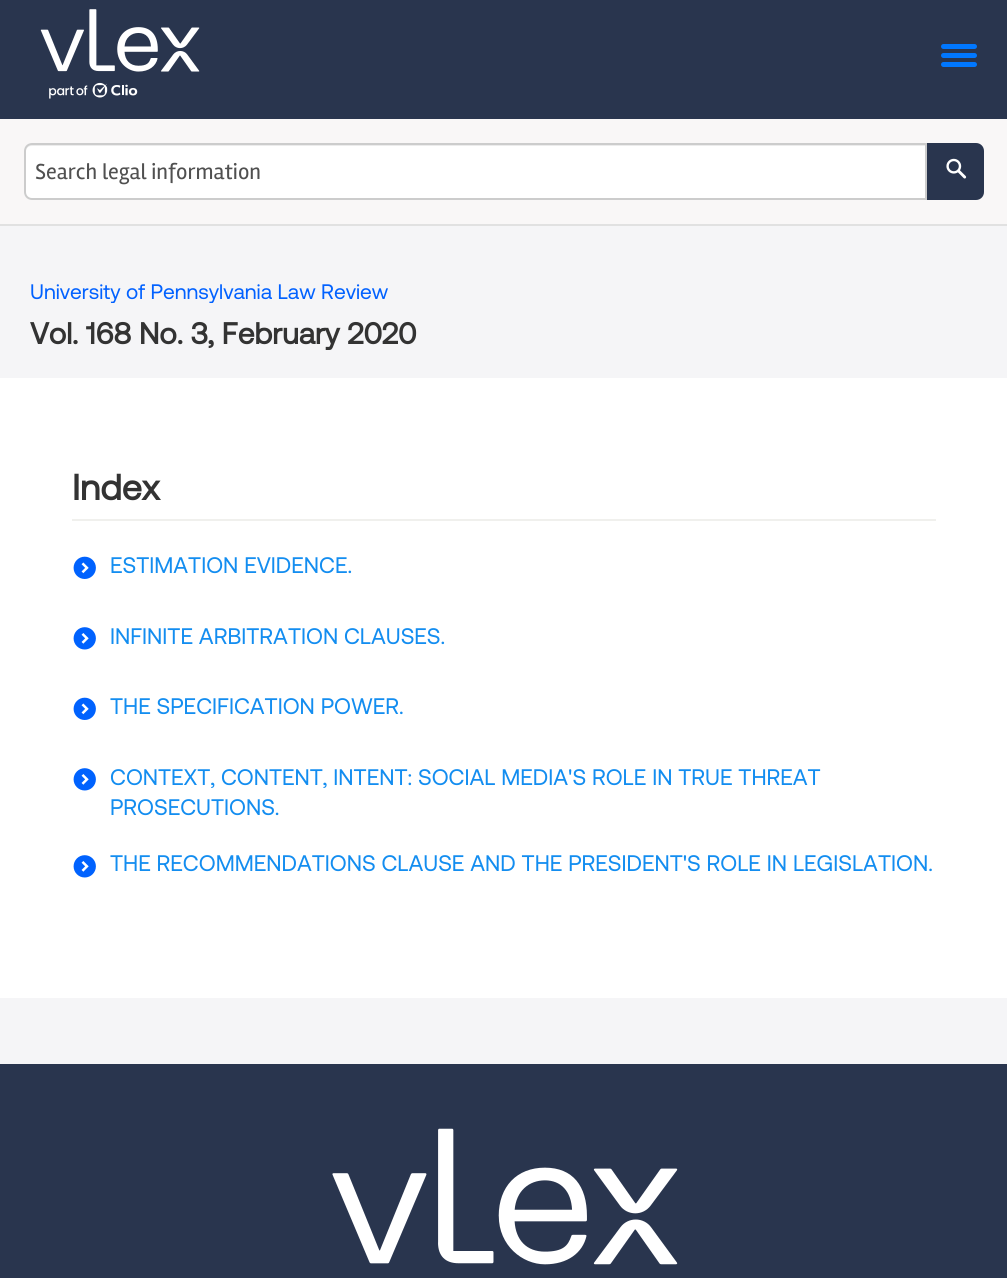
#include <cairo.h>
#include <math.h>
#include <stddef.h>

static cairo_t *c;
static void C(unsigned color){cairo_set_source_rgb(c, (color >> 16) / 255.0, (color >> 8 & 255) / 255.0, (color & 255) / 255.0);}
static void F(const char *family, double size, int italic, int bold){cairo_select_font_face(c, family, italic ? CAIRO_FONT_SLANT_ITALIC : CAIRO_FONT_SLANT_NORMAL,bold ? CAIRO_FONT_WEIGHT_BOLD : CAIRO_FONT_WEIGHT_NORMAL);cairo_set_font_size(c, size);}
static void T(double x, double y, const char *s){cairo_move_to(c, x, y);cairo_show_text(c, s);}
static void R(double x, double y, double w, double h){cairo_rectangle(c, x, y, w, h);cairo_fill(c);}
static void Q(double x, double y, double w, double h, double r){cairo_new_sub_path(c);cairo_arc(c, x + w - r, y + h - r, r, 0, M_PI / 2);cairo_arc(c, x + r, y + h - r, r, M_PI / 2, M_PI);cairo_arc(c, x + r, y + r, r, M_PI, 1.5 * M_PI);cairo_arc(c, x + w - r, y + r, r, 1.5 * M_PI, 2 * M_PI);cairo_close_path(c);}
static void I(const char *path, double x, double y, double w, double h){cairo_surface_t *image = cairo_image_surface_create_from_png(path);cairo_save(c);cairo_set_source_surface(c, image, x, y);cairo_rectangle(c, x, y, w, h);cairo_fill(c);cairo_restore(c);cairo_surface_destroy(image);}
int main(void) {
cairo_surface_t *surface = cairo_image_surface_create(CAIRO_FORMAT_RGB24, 1007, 1278);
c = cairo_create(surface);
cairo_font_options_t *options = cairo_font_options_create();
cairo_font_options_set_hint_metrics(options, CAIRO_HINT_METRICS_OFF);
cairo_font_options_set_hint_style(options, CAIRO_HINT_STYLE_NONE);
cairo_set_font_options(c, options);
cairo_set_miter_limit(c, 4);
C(0xf5f5f7);
cairo_paint(c);
C(0x29354e);
R(0,0,1007,119);
I("1.png",40,9,160,90);
C(0x0077ff);
Q(941,53,36,5,2.5);
cairo_fill(c);
Q(941,44,36,5,2.5);
cairo_fill(c);
Q(941,62,36,5,2.5);
cairo_fill(c);
C(0xf9f7f7);
R(0,119,1007,105);
C(0xe1e1e1);
R(0,224,1007,2);
C(0xffffff);
cairo_new_path(c);
cairo_move_to(c,32,143);
cairo_line_to(c,927,143);
cairo_line_to(c,927,200);
cairo_line_to(c,32,200);
cairo_curve_to(c,27.5,200,24,196.5,24,192);
cairo_line_to(c,24,151);
cairo_curve_to(c,24,146.5,27.5,143,32,143);
cairo_close_path(c);
cairo_fill(c);
C(0xececec);
cairo_new_path(c);
cairo_move_to(c,32,146);
cairo_line_to(c,926,146);
cairo_line_to(c,926,144);
cairo_line_to(c,32,144);
cairo_curve_to(c,27,144,26,148,26,152);
cairo_curve_to(c,26,148,28,146,32,146);
cairo_close_path(c);
cairo_fill(c);
cairo_new_path(c);
cairo_move_to(c,32,144);
cairo_line_to(c,926,144);
cairo_line_to(c,926,199);
cairo_line_to(c,32,199);
cairo_curve_to(c,28,199,25,196,25,192);
cairo_line_to(c,25,151);
cairo_curve_to(c,25,147,28,144,32,144);
cairo_close_path(c);
C(0xcccccc);
cairo_stroke(c);
F("Rambla",22.5,0,0);
C(0x505050);
T(35,179,"Search legal information");
C(0x29354e);
cairo_new_path(c);
cairo_move_to(c,927,143);
cairo_line_to(c,976,143);
cairo_curve_to(c,980.5,143,984,146.5,984,151);
cairo_line_to(c,984,192);
cairo_curve_to(c,984,196.5,980.5,200,976,200);
cairo_line_to(c,927,200);
cairo_close_path(c);
cairo_fill(c);
I("2.png",946,158,21,21);
cairo_save(c);
cairo_rectangle(c,30,276,948,27);
cairo_clip(c);
F("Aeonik",21,0,0);
C(0x0161ff);
T(30,299,"University of Pennsylvania Law Review");
cairo_restore(c);
F("Aeonik",30,0,1);
C(0x333333);
T(30,344,"Vol. 168 No. 3, February 2020");
C(0xffffff);
R(0,378,1007,620);
F("Aeonik",36,0,1);
C(0x333333);
T(72,500,"Index");
C(0xf0f0ed);
R(72,519,864,2);
I("3.png",73,556,23,23);
F("Aeonik",22.5,0,0);
C(0x138df0);
T(110,573,"ESTIMATION EVIDENCE.");
I("4.png",73,627,23,23);
T(110,644,"INFINITE ARBITRATION CLAUSES.");
I("3.png",73,697,23,23);
T(110,714,"THE SPECIFICATION POWER.");
I("4.png",73,768,23,23);
T(110,785,"CONTEXT, CONTENT, INTENT: SOCIAL MEDIA'S ROLE IN TRUE THREAT");
T(110,815,"PROSECUTIONS.");
I("4.png",73,855,23,23);
T(110,871,"THE RECOMMENDATIONS CLAUSE AND THE PRESIDENT'S ROLE IN LEGISLATION.");
C(0x29354e);
R(0,1064,1007,214);
I("5.png",332,1128,346,137);
cairo_surface_write_to_png(surface, "o.png");
cairo_font_options_destroy(options);
cairo_destroy(c);
cairo_surface_destroy(surface);
return 0;
}
